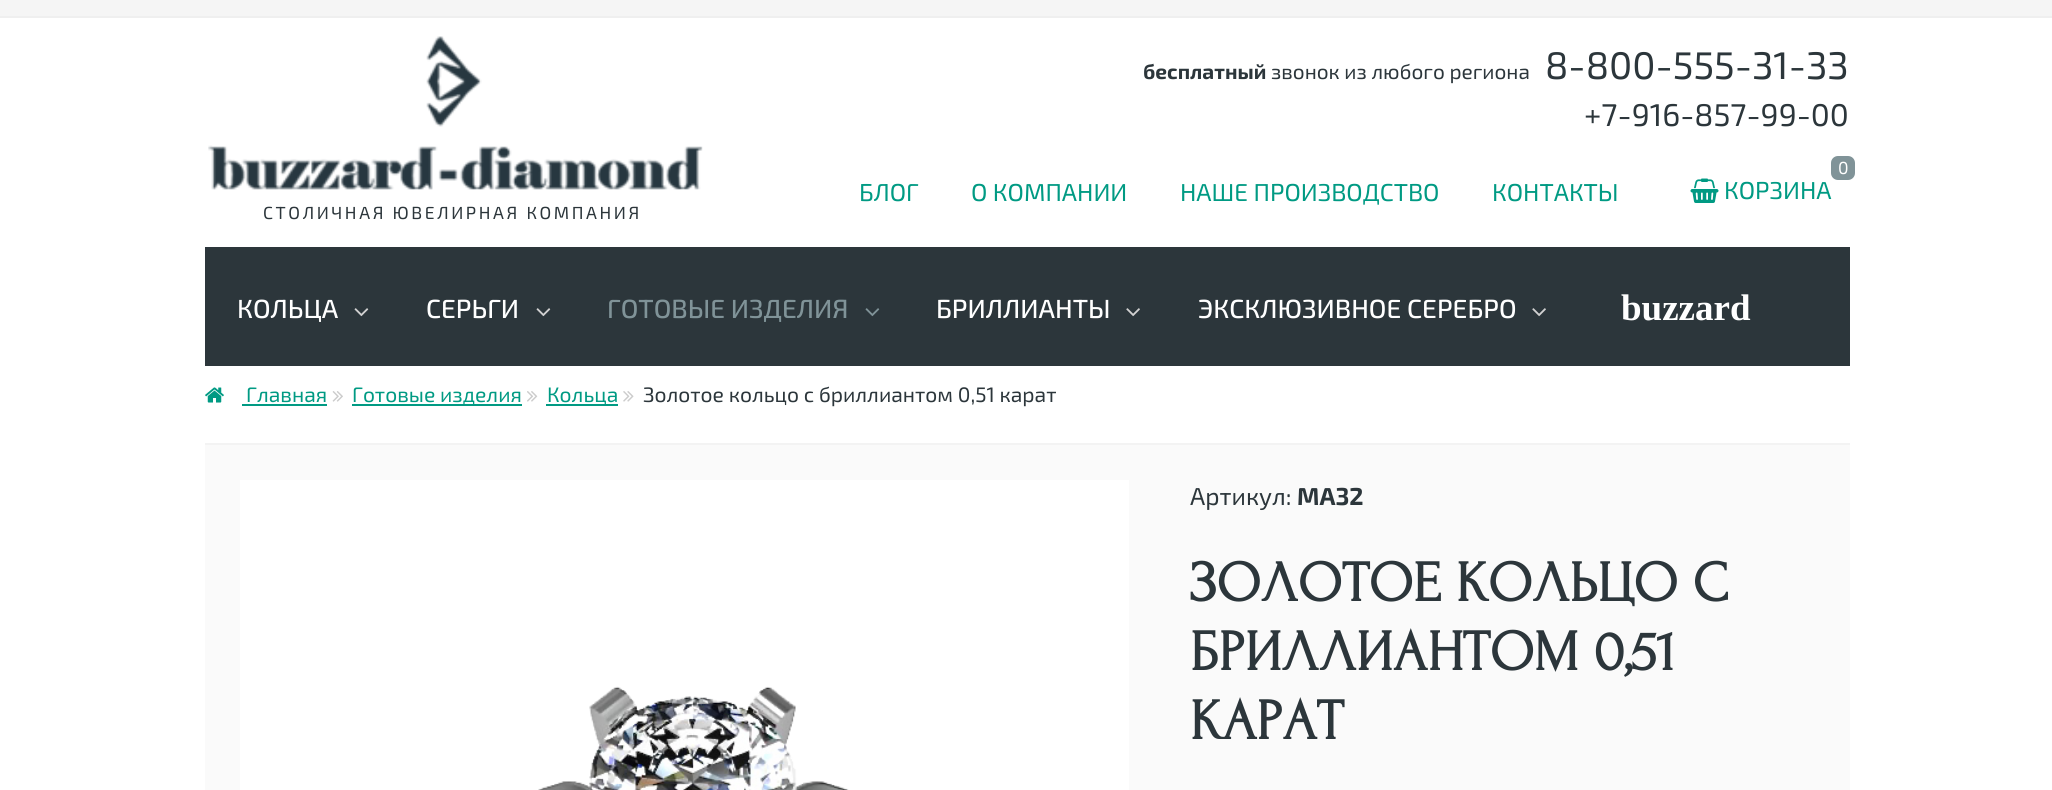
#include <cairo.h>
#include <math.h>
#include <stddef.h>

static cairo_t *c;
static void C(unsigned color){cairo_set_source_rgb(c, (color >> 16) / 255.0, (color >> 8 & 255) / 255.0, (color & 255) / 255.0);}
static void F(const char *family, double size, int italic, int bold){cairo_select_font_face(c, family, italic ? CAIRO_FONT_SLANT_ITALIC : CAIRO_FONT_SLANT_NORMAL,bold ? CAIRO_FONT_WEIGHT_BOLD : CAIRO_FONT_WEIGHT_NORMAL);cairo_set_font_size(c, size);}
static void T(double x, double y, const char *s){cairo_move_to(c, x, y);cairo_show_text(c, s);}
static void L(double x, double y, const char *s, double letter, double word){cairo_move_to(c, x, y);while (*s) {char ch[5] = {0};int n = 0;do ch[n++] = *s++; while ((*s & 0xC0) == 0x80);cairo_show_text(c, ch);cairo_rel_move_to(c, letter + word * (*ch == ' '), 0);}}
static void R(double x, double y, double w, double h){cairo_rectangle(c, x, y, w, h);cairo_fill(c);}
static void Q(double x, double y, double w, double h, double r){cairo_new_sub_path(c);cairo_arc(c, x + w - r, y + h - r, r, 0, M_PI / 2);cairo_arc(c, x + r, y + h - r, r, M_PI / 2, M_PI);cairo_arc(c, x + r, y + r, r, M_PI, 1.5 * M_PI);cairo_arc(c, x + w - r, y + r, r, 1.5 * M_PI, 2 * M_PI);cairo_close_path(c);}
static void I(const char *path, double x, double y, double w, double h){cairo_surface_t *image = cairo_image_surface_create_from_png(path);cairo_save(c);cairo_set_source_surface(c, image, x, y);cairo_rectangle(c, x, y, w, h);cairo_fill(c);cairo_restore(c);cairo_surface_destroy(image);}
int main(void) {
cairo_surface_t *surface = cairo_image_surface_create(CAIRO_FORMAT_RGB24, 2052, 790);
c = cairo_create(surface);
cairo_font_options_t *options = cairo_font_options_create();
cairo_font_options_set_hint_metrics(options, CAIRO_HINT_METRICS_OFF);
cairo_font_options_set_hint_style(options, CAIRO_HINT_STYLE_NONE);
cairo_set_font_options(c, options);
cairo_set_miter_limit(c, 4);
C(0xffffff);
cairo_paint(c);
C(0xf5f5f5);
R(0,0,2052,16);
C(0xefefef);
R(0,16,2052,2);
F("Exo 2",20.75,0,1);
C(0x2c363b);
T(1143,79,"бесплатный");
F("Exo 2",20.75,0,0);
T(1271,79,"звонок из любого региона");
F("Exo 2",38.5,0,0);
T(1545,79,"8-800-555-31-33");
F("Exo 2",31.5,0,0);
T(1584,126,"+7-916-857-99-00");
F("Exo 2",24.5,0,0);
C(0x009a83);
T(859,201,"БЛОГ");
T(971,201,"О КОМПАНИИ");
T(1180,201,"НАШЕ ПРОИЗВОДСТВО");
T(1492,201,"КОНТАКТЫ");
C(0x809398);
Q(1831,156,24,24,7);
cairo_fill(c);
F("Exo 2",17.5,0,0);
C(0xffffff);
T(1838,174,"0");
I("1.png",1690,178,29,25);
F("Exo 2",24.5,0,0);
C(0x009a83);
T(1724,199,"КОРЗИНА");
I("2.png",208,36,495,154);
F("Exo 2",17.5,0,0);
C(0x2c363b);
L(263,219,"СТОЛИЧНАЯ ЮВЕЛИРНАЯ КОМПАНИЯ",2.6,0);
R(205,247,1645,119);
F("Exo 2 Medium",26.25,0,0);
C(0xffffff);
T(237,318,"КОЛЬЦА");
I("3.png",354,308,15,9);
T(426,318,"СЕРЬГИ");
I("3.png",536,308,15,9);
C(0x809398);
T(607,318,"ГОТОВЫЕ ИЗДЕЛИЯ");
I("4.png",865,308,15,9);
C(0xffffff);
T(936,318,"БРИЛЛИАНТЫ");
I("5.png",1126,308,14,9);
T(1198,318,"ЭКСКЛЮЗИВНОЕ СЕРЕБРО");
I("5.png",1532,308,14,9);
F("Liberation Serif",37,0,1);
T(1621,320,"buzzard");
I("6.png",205,387,19,16);
F("Exo 2",21,0,0);
C(0x009a83);
T(246,402,"Главная");
R(242,404,85,2);
I("7.png",332,391,11,11);
R(352,404,170,2);
T(352,402,"Готовые изделия");
I("8.png",527,391,11,11);
R(546,404,72,2);
T(547,402,"Кольца");
I("9.png",623,391,11,11);
C(0x2c363b);
T(643,402,"Золотое кольцо с бриллиантом 0,51 карат");
C(0xfafafa);
R(205,445,1645,345);
C(0xf3f3f3);
R(205,443,1645,2);
C(0xffffff);
R(240,480,889,310);
I("10.png",538,686,311,104);
F("Exo 2",24.5,0,0);
C(0x2c363b);
T(1190,505,"Артикул:");
F("Exo 2",24.5,0,1);
T(1297,505,"MA32");
F("Forum",57.75,0,1);
T(1190,601,"ЗОЛОТОЕ КОЛЬЦО С");
T(1190,670,"БРИЛЛИАНТОМ 0,51");
T(1190,739,"КАРАТ");
cairo_surface_write_to_png(surface, "o.png");
cairo_font_options_destroy(options);
cairo_destroy(c);
cairo_surface_destroy(surface);
return 0;
}
